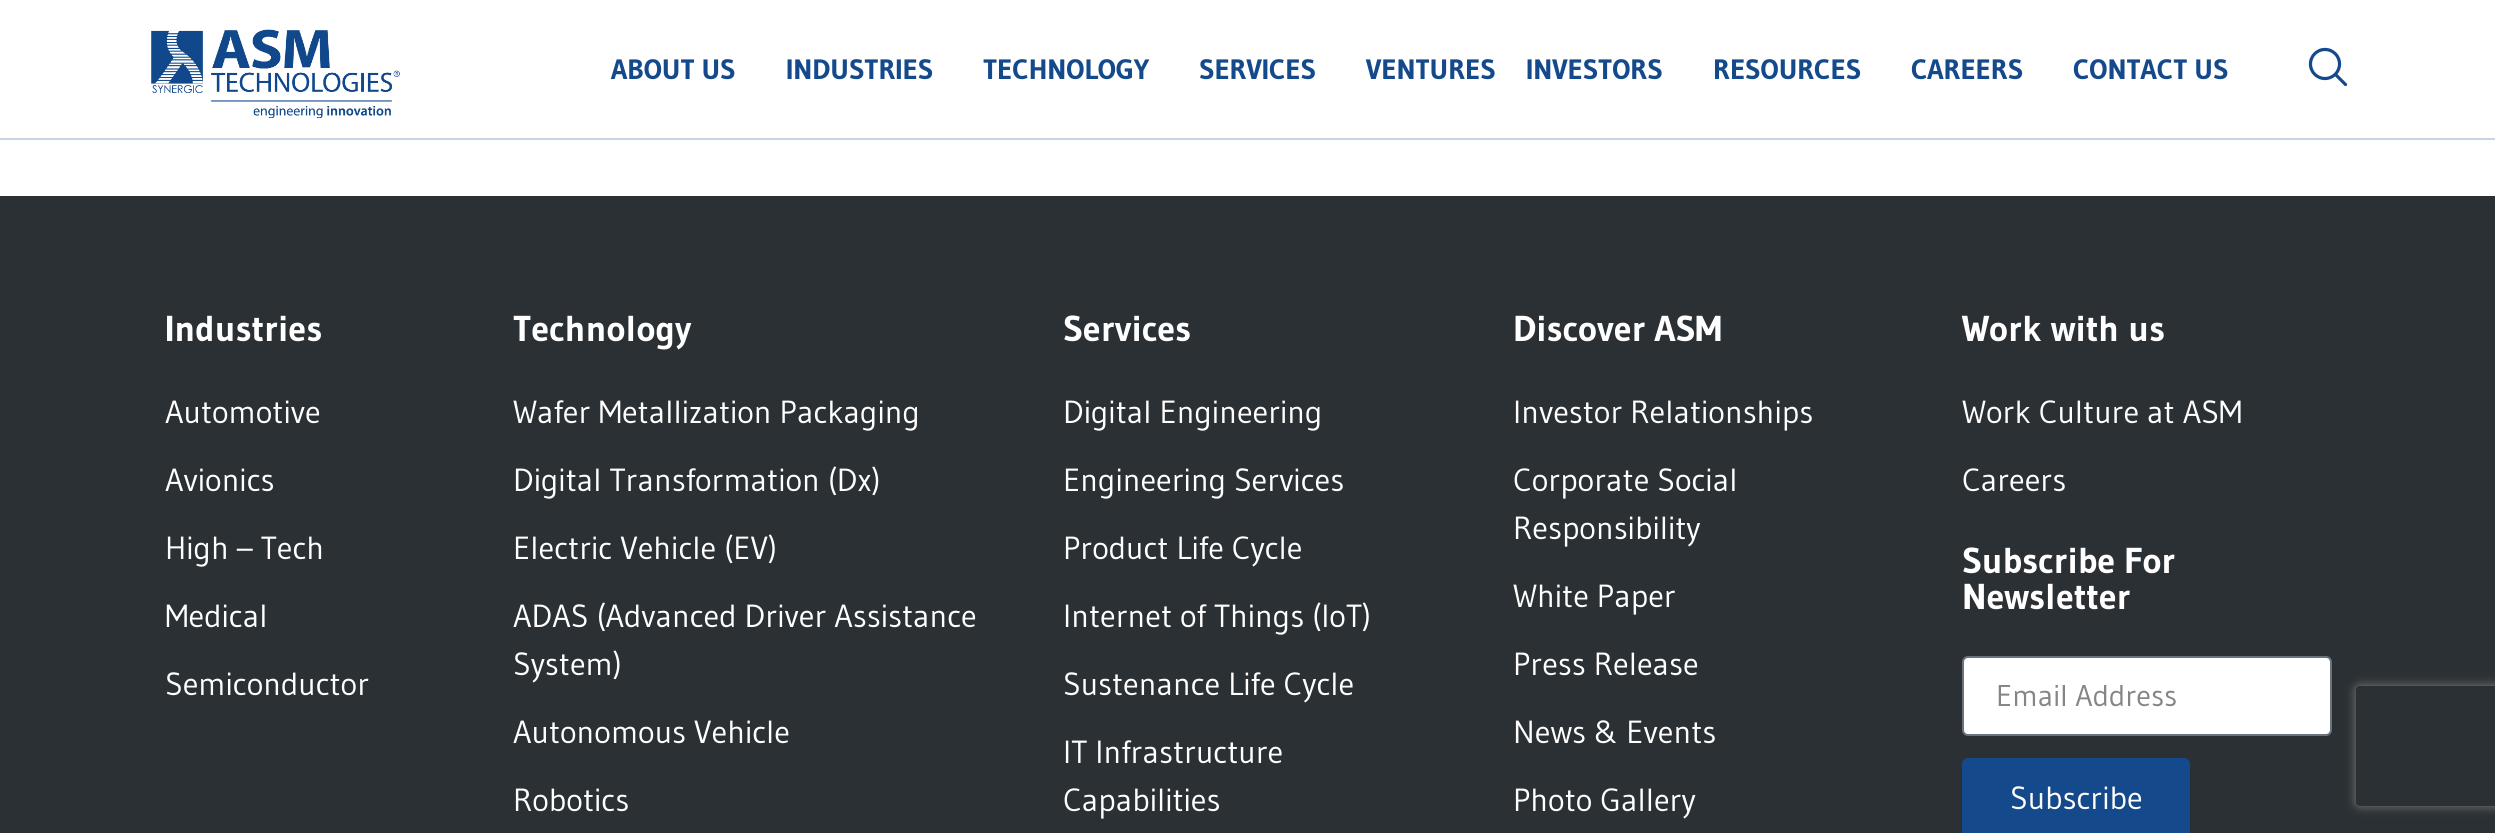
#include <cairo.h>
#include <math.h>
#include <stddef.h>

static cairo_t *c;
static void C(unsigned color){cairo_set_source_rgb(c, (color >> 16) / 255.0, (color >> 8 & 255) / 255.0, (color & 255) / 255.0);}
static void F(const char *family, double size, int italic, int bold){cairo_select_font_face(c, family, italic ? CAIRO_FONT_SLANT_ITALIC : CAIRO_FONT_SLANT_NORMAL,bold ? CAIRO_FONT_WEIGHT_BOLD : CAIRO_FONT_WEIGHT_NORMAL);cairo_set_font_size(c, size);}
static void T(double x, double y, const char *s){cairo_move_to(c, x, y);cairo_show_text(c, s);}
static void R(double x, double y, double w, double h){cairo_rectangle(c, x, y, w, h);cairo_fill(c);}
static void Q(double x, double y, double w, double h, double r){cairo_new_sub_path(c);cairo_arc(c, x + w - r, y + h - r, r, 0, M_PI / 2);cairo_arc(c, x + r, y + h - r, r, M_PI / 2, M_PI);cairo_arc(c, x + r, y + r, r, M_PI, 1.5 * M_PI);cairo_arc(c, x + w - r, y + r, r, 1.5 * M_PI, 2 * M_PI);cairo_close_path(c);}
static void S(double x, double y, double w, double h, double r, double blur, double alpha){cairo_push_group_with_content(c, CAIRO_CONTENT_ALPHA);cairo_set_operator(c, CAIRO_OPERATOR_SOURCE);for (int i = 15; i >= -15 && fmin(w, h) + blur * i / 3 > 0; i -= 2) {double e = blur * i / 6;cairo_set_source_rgba(c, 0, 0, 0, alpha * erfc((i - 1) / 8.5) / 2);Q(x - e, y - e, w + 2 * e, h + 2 * e, fmax(0, fmin(r + e + blur * .6, fmin(w, h) / 2 + e)));cairo_fill(c);}cairo_pattern_t *soft = cairo_pop_group(c);cairo_mask(c, soft);cairo_pattern_destroy(soft);}
static void I(const char *path, double x, double y, double w, double h){cairo_surface_t *image = cairo_image_surface_create_from_png(path);cairo_save(c);cairo_set_source_surface(c, image, x, y);cairo_rectangle(c, x, y, w, h);cairo_fill(c);cairo_restore(c);cairo_surface_destroy(image);}
int main(void) {
cairo_surface_t *surface = cairo_image_surface_create(CAIRO_FORMAT_RGB24, 2495, 833);
c = cairo_create(surface);
cairo_font_options_t *options = cairo_font_options_create();
cairo_font_options_set_hint_metrics(options, CAIRO_HINT_METRICS_OFF);
cairo_font_options_set_hint_style(options, CAIRO_HINT_STYLE_NONE);
cairo_set_font_options(c, options);
cairo_set_miter_limit(c, 4);
C(0xffffff);
cairo_paint(c);
C(0xc7d4e3);
R(0,138,2495,2);
I("1.png",151,29,249,89);
F("Gudea",28,0,1);
C(0x144a8b);
T(611,79,"ABOUT US");
T(786,79,"INDUSTRIES");
T(983,79,"TECHNOLOGY");
T(1199,79,"SERVICES");
T(1366,79,"VENTURES");
T(1526,79,"INVESTORS");
T(1713,79,"RESOURCES");
T(1911,79,"CAREERS");
T(2073,79,"CONTACT US");
I("2.png",2308,47,40,40);
C(0x2b3034);
R(0,196,2495,637);
F("Gudea",36,0,1);
C(0xffffff);
T(165,341,"Industries");
F("Gudea",32,0,0);
T(165,423,"Automotive");
T(165,491,"Avionics");
T(165,559,"High – Tech");
T(165,627,"Medical");
T(165,695,"Semiconductor");
F("Gudea",36,0,1);
T(513,341,"Technology");
F("Gudea",32,0,0);
T(513,423,"Wafer Metallization Packaging");
T(513,491,"Digital Transformation (Dx)");
T(513,559,"Electric Vehicle (EV)");
T(513,627,"ADAS (Advanced Driver Assistance");
T(513,675,"System)");
T(513,743,"Autonomous Vehicle");
T(513,811,"Robotics");
F("Gudea",36,0,1);
T(1063,341,"Services");
F("Gudea",32,0,0);
T(1063,423,"Digital Engineering");
T(1063,491,"Engineering Services");
T(1063,559,"Product Life Cycle");
T(1063,627,"Internet of Things (IoT)");
T(1063,695,"Sustenance Life Cycle");
T(1063,763,"IT Infrastructure");
T(1063,811,"Capabilities");
F("Gudea",36,0,1);
T(1513,341,"Discover ASM");
F("Gudea",32,0,0);
T(1513,423,"Investor Relationships");
T(1513,491,"Corporate Social");
T(1513,539,"Responsibility");
T(1513,607,"White Paper");
T(1513,675,"Press Release");
T(1513,743,"News & Events");
T(1513,811,"Photo Gallery");
F("Gudea",36,0,1);
T(1962,341,"Work with us");
F("Gudea",32,0,0);
T(1962,423,"Work Culture at ASM");
T(1962,491,"Careers");
F("Gudea",36,0,1);
T(1962,573,"Subscribe For");
T(1962,609,"Newsletter");
Q(1963,657,368,78,5);
cairo_fill_preserve(c);
C(0x69727d);
cairo_stroke(c);
F("Gudea",30,0,0);
C(0x858585);
T(1996,706,"Email Address");
cairo_save(c);
cairo_set_fill_rule(c,CAIRO_FILL_RULE_EVEN_ODD);
cairo_new_path(c);
cairo_move_to(c,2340,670);
cairo_line_to(c,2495,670);
cairo_line_to(c,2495,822);
cairo_line_to(c,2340,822);
cairo_close_path(c);
cairo_move_to(c,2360,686);
cairo_line_to(c,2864,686);
cairo_curve_to(c,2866,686,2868,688,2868,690);
cairo_line_to(c,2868,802);
cairo_curve_to(c,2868,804,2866,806,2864,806);
cairo_line_to(c,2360,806);
cairo_curve_to(c,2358,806,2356,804,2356,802);
cairo_line_to(c,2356,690);
cairo_curve_to(c,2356,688,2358,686,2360,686);
cairo_close_path(c);
cairo_clip(c);
C(0x808080);
S(2356,686,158,120,4,5,1);
cairo_restore(c);
C(0x144a8b);
Q(1962,758,228,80,6);
cairo_fill(c);
F("Gudea",32,0,0);
C(0xffffff);
T(2010,809,"Subscribe");
cairo_surface_write_to_png(surface, "o.png");
cairo_font_options_destroy(options);
cairo_destroy(c);
cairo_surface_destroy(surface);
return 0;
}
